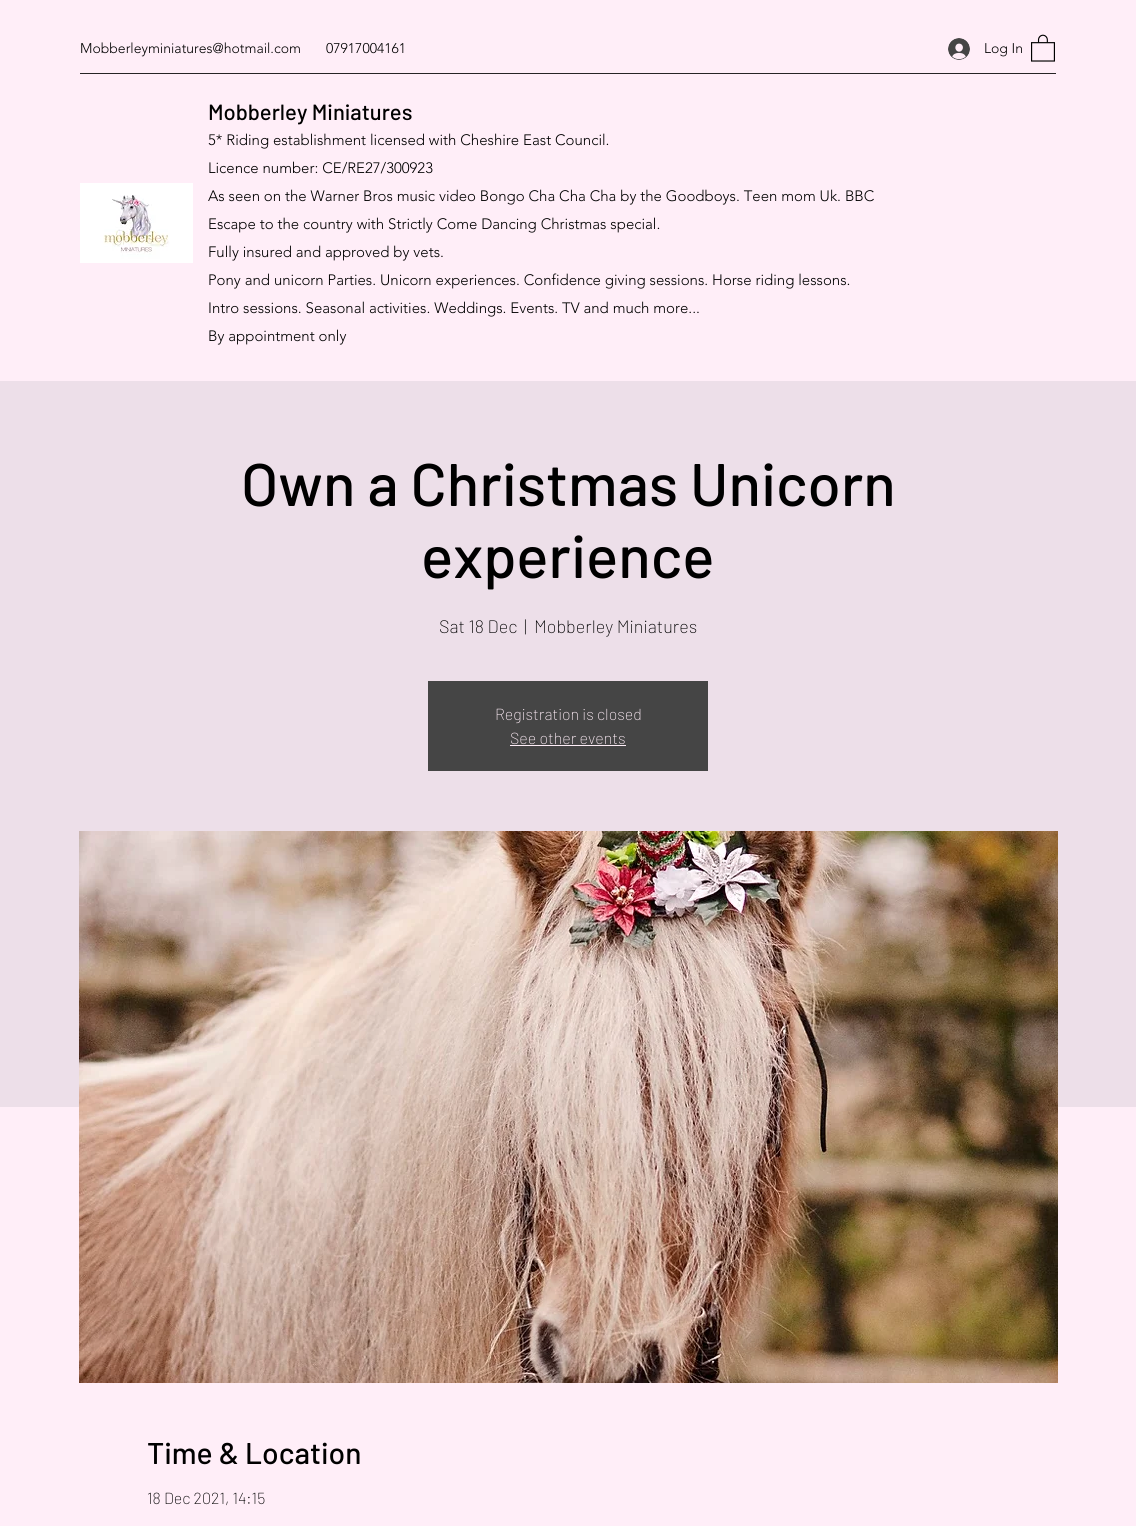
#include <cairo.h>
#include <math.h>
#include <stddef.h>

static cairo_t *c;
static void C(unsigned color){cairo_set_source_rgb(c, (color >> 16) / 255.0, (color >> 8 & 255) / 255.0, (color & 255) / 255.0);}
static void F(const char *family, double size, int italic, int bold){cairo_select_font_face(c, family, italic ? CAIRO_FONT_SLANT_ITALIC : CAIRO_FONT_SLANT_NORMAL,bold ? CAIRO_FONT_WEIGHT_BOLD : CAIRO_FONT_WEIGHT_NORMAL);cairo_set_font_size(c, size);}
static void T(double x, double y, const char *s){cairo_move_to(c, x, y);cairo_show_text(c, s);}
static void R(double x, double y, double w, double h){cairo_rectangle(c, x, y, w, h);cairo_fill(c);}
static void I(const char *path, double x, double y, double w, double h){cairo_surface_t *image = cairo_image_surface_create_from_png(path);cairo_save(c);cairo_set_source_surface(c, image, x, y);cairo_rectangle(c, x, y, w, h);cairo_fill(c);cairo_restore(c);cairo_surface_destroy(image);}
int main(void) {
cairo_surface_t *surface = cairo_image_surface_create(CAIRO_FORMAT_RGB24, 1136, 1526);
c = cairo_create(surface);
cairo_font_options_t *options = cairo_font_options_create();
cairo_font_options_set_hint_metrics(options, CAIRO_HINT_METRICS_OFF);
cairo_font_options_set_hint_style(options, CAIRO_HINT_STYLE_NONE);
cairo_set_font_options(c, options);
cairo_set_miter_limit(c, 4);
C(0xffeef8);
cairo_paint(c);
F("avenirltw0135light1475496 Light",14,0,0);
C(0x000000);
T(80,53,"Mobberleyminiatures@hotmail.com");
T(326,53,"07917004161");
I("1.png",948,38,22,22);
T(984,53,"Log In");
I("2.png",1031,34,24,28);
C(0x262425);
R(80,73,976,1);
F("Barlow Medium",22,0,0);
C(0x000000);
T(208,120,"Mobberley Miniatures");
I("3.png",80,183,113,80);
F("avenirltw0135light1475496 Light",15,0,0);
T(208,145,"5* Riding establishment licensed with Cheshire East Council.");
T(208,173,"Licence number: CE/RE27/300923");
T(208,201,"As seen on the Warner Bros music video Bongo Cha Cha Cha by the Goodboys. Teen mom Uk. BBC");
T(208,229,"Escape to the country with Strictly Come Dancing Christmas special.");
T(208,257,"Fully insured and approved by vets.");
T(208,285,"Pony and unicorn Parties. Unicorn experiences. Confidence giving sessions. Horse riding lessons.");
T(208,313,"Intro sessions. Seasonal activities. Weddings. Events. TV and much more...");
T(208,341,"By appointment only");
C(0xeddfe9);
R(0,381,1136,726);
F("Barlow Medium",60,0,0);
C(0x000000);
T(241,506,"Own a Christmas Unicorn");
T(421,578,"experience");
F("Barlow ExtraLight",18,0,0);
T(439,633,"Sat 18 Dec");
T(524,633,"|");
T(534,633,"Mobberley Miniatures");
C(0x454545);
R(428,681,280,90);
F("Barlow ExtraLight",16,0,0);
C(0xffeef8);
T(495,720,"Registration is closed");
T(510,744,"See other events");
R(510,745,116,1);
I("4.png",79,831,979,552);
F("Barlow Medium",30,0,0);
C(0x000000);
T(147,1464,"Time & Location");
F("Barlow ExtraLight",16,0,0);
T(147,1504,"18 Dec 2021, 14:15");
cairo_surface_write_to_png(surface, "o.png");
cairo_font_options_destroy(options);
cairo_destroy(c);
cairo_surface_destroy(surface);
return 0;
}
